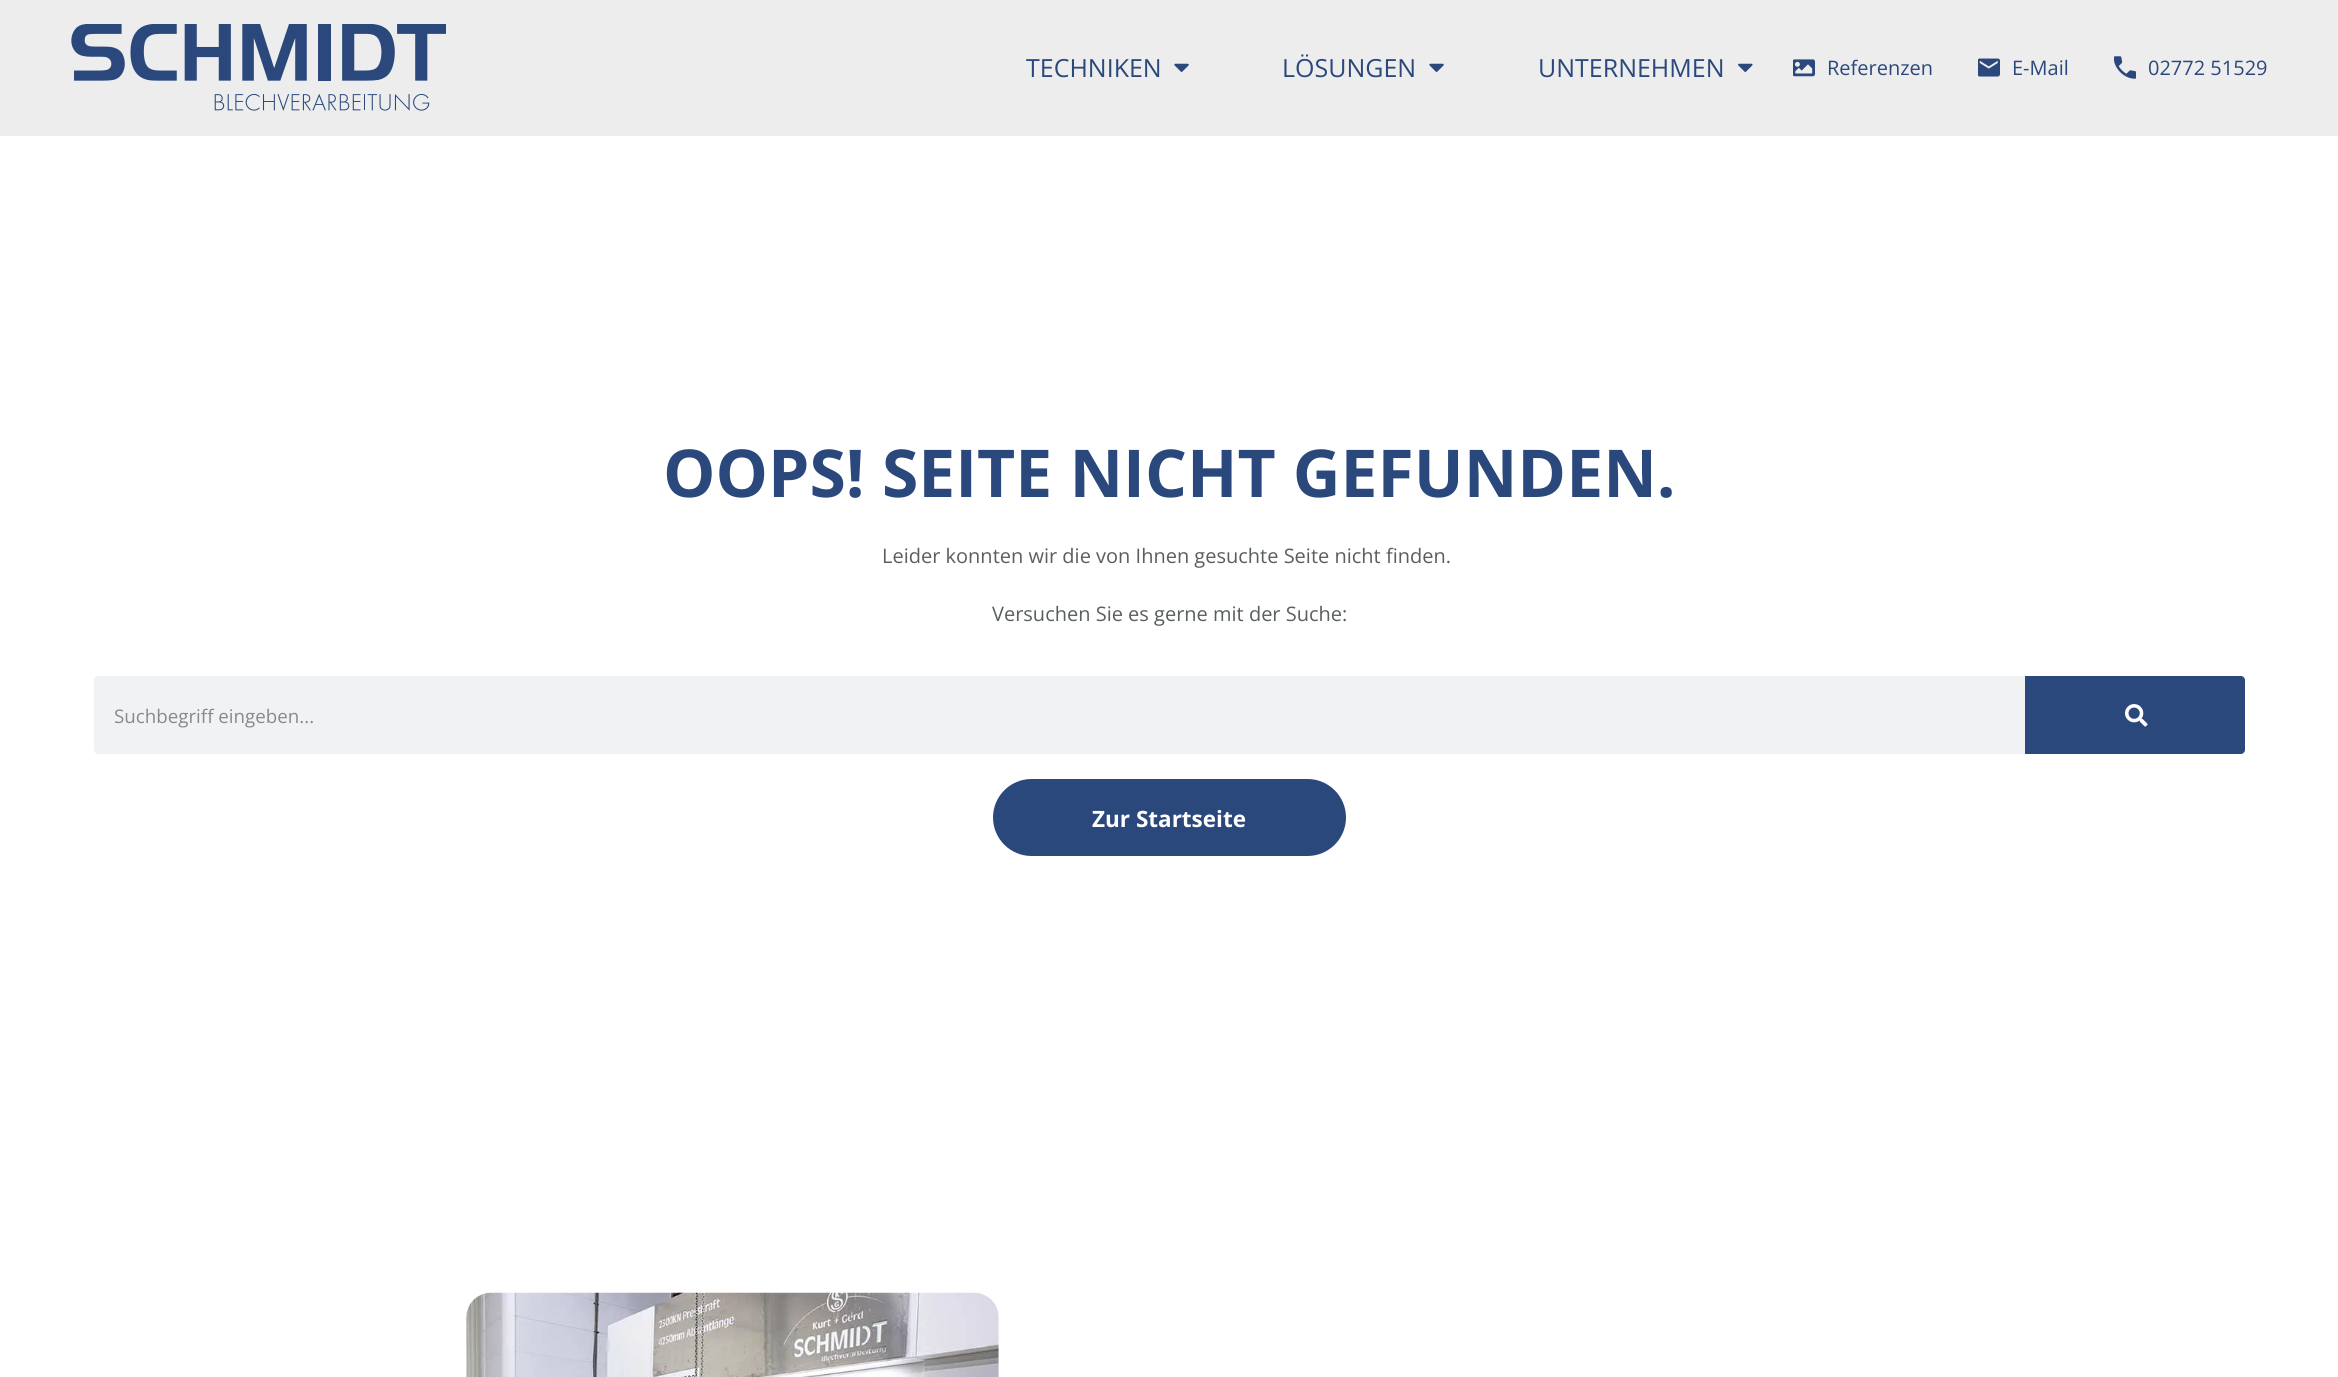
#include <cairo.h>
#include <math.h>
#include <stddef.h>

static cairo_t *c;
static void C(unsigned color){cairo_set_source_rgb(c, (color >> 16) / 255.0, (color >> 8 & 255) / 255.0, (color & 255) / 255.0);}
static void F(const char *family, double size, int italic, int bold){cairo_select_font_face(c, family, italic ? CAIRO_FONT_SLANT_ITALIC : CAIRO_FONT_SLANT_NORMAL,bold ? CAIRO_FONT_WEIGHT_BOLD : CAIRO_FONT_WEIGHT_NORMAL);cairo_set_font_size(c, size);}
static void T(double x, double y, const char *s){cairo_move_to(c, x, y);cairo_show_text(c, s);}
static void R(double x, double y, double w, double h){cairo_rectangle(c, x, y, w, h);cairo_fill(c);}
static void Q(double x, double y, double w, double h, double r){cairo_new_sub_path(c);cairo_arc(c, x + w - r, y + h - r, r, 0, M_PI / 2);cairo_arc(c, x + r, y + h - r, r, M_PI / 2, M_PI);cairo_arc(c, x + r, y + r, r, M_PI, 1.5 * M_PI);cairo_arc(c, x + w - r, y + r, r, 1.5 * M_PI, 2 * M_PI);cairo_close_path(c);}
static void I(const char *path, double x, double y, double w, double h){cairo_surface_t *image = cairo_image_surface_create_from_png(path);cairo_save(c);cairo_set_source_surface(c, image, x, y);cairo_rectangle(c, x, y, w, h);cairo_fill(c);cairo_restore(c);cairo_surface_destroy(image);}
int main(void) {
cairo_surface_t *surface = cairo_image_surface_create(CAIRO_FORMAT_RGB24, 2338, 1377);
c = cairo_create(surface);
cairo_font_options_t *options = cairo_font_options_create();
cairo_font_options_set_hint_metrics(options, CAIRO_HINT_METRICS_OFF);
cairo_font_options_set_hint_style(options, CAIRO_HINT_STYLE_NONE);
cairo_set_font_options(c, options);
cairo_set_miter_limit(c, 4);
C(0xffffff);
cairo_paint(c);
C(0xededed);
R(0,0,2338,136);
I("1.png",71,24,375,87);
F("Open Sans",25,0,0);
C(0x2a487c);
T(1026,77,"TECHNIKEN");
I("2.png",1174,63,15,9);
T(1282,77,"LÖSUNGEN");
I("2.png",1429,63,15,9);
T(1538,77,"UNTERNEHMEN");
I("3.png",1738,63,15,9);
I("4.png",1793,59,22,18);
F("Open Sans",20,0,0);
T(1827,75,"Referenzen");
I("5.png",1978,58,22,19);
T(2012,75,"E-Mail");
I("6.png",2114,56,22,23);
T(2148,75,"02772 51529");
F("Open Sans",66,0,1);
T(663,497,"OOPS! SEITE NICHT GEFUNDEN.");
F("Open Sans",20,0,0);
C(0x595f5d);
T(882,563,"Leider konnten wir die von Ihnen gesuchte Seite nicht finden.");
T(992,621,"Versuchen Sie es gerne mit der Suche:");
C(0xf1f2f3);
Q(94,676,2151,78,4);
cairo_fill(c);
F("Open Sans",18.75,0,0);
C(0x868a8e);
T(114,723,"Suchbegriff eingeben...");
C(0x2a487c);
cairo_new_path(c);
cairo_move_to(c,2025,676);
cairo_line_to(c,2241,676);
cairo_curve_to(c,2243,676,2245,678,2245,680);
cairo_line_to(c,2245,750);
cairo_curve_to(c,2245,752,2243,754,2241,754);
cairo_line_to(c,2025,754);
cairo_close_path(c);
cairo_fill(c);
I("7.png",2125,704,23,23);
Q(993,779,353,77,38.5);
cairo_fill(c);
F("Open Sans",22.5,0,1);
C(0xffffff);
T(1092,827,"Zur Startseite");
I("8.png",466,1292,533,85);
cairo_surface_write_to_png(surface, "o.png");
cairo_font_options_destroy(options);
cairo_destroy(c);
cairo_surface_destroy(surface);
return 0;
}
